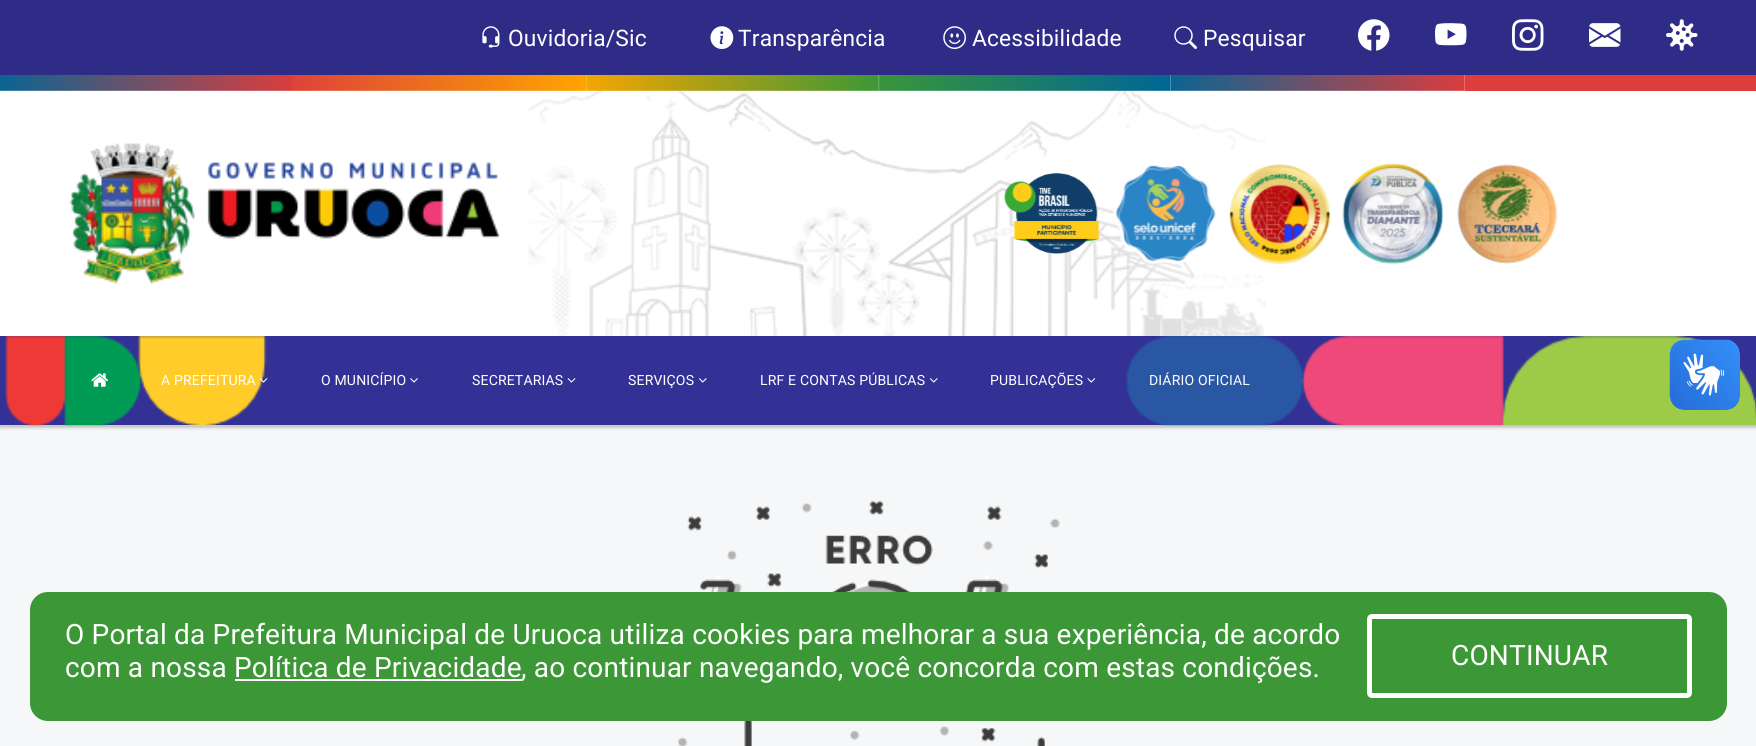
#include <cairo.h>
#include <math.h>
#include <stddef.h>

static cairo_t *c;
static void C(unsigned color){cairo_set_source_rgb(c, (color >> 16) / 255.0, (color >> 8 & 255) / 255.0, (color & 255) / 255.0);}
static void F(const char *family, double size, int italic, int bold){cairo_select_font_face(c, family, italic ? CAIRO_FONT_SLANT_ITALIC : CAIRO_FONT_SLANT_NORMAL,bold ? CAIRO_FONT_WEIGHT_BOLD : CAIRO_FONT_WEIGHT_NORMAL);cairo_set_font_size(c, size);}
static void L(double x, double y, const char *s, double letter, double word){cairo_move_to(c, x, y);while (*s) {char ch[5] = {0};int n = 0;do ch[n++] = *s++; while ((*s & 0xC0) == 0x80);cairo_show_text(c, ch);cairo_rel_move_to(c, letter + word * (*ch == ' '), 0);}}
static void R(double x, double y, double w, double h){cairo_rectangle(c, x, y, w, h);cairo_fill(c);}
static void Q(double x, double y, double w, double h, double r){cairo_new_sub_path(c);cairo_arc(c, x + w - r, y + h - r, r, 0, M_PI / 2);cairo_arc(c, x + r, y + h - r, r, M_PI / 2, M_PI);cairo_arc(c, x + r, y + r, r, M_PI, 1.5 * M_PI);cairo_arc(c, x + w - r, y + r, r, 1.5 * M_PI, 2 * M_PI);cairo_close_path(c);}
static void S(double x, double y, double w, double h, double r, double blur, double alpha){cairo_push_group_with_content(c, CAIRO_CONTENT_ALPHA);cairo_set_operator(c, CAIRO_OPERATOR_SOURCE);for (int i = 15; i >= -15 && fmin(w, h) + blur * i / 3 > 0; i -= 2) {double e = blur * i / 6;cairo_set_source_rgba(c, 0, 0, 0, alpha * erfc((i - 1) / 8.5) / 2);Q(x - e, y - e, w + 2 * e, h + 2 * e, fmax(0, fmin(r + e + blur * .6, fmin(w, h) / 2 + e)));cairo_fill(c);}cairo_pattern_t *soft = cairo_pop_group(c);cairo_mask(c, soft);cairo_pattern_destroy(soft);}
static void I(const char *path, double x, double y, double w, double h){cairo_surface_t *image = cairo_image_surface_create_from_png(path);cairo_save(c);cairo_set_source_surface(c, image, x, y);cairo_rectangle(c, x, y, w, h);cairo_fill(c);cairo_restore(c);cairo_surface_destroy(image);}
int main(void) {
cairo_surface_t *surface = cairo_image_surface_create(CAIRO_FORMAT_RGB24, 1756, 746);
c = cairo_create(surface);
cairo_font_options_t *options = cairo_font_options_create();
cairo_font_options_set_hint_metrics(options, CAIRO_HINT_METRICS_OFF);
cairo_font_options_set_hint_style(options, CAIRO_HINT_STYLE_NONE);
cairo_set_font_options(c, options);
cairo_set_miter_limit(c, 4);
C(0xf6f7f8);
cairo_paint(c);
C(0x000000);
S(0,2,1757,425,0,2,.3);
I("1.png",0,75,1756,351);
C(0x2e2c87);
R(0,0,1756,75);
I("2.png",482,26,18,22);
F("Roboto",22.75,0,0);
C(0xffffff);
L(508,46,"Ouvidoria/Sic",.18,0);
I("3.png",710,26,24,23);
L(738,46,"Transparência",.18,0);
I("4.png",943,26,23,23);
L(972,46,"Acessibilidade",.18,0);
I("5.png",1174,26,23,23);
L(1203,46,"Pesquisar",.18,0);
I("6.png",1358,19,32,32);
I("7.png",1435,23,32,23);
I("8.png",1512,19,32,32);
I("9.png",1589,23,32,24);
I("10.png",1666,19,32,32);
I("11.png",0,75,293,16);
I("12.png",292,75,295,16);
I("13.png",586,75,293,16);
I("14.png",878,75,294,16);
I("15.png",1170,75,295,16);
C(0xdc3d3d);
R(1465,75,291,16);
I("16.png",69,143,431,141);
I("17.png",1004,173,96,81);
I("18.png",1113,165,103,100);
I("19.png",1229,164,102,100);
I("20.png",1342,163,102,101);
I("21.png",1457,164,101,100);
C(0x333196);
R(0,336,1756,89);
I("22.png",5,336,1751,90);
I("23.png",91,373,17,14);
F("Roboto",14,0,0);
C(0xffffff);
L(161,385,"A PREFEITURA",.18,0);
I("24.png",259,378,9,5);
L(321,385,"O MUNICÍPIO",.18,0);
I("25.png",410,378,8,5);
L(472,385,"SECRETARIAS",.18,0);
I("26.png",567,378,9,5);
L(628,385,"SERVIÇOS",.18,0);
I("27.png",698,378,9,5);
L(760,385,"LRF E CONTAS PÚBLICAS",.18,0);
I("27.png",929,378,9,5);
L(990,385,"PUBLICAÇÕES",.18,0);
I("28.png",1087,378,9,5);
L(1149,385,"DIÁRIO OFICIAL",.18,0);
I("29.png",1669,339,71,71);
I("30.png",1670,340,70,70);
I("31.png",677,500,383,246);
C(0x3c9836);
Q(30,592,1697,129,18);
cairo_fill(c);
F("Roboto",28,0,0);
C(0xffffff);
L(65,644,"O Portal da Prefeitura Municipal de Uruoca utiliza cookies para melhorar a sua experiência, de acordo",.18,0);
L(65,677,"com a nossa Política de Privacidade",.18,0);
R(235,679,287,2);
L(521,677,", ao continuar navegando, você concorda com estas condições.",.18,0);
Q(1369.5,616.5,320,79,2.5);
cairo_set_line_width(c,5);
cairo_stroke(c);
L(1451,665,"CONTINUAR",.18,0);
cairo_surface_write_to_png(surface, "o.png");
cairo_font_options_destroy(options);
cairo_destroy(c);
cairo_surface_destroy(surface);
return 0;
}
